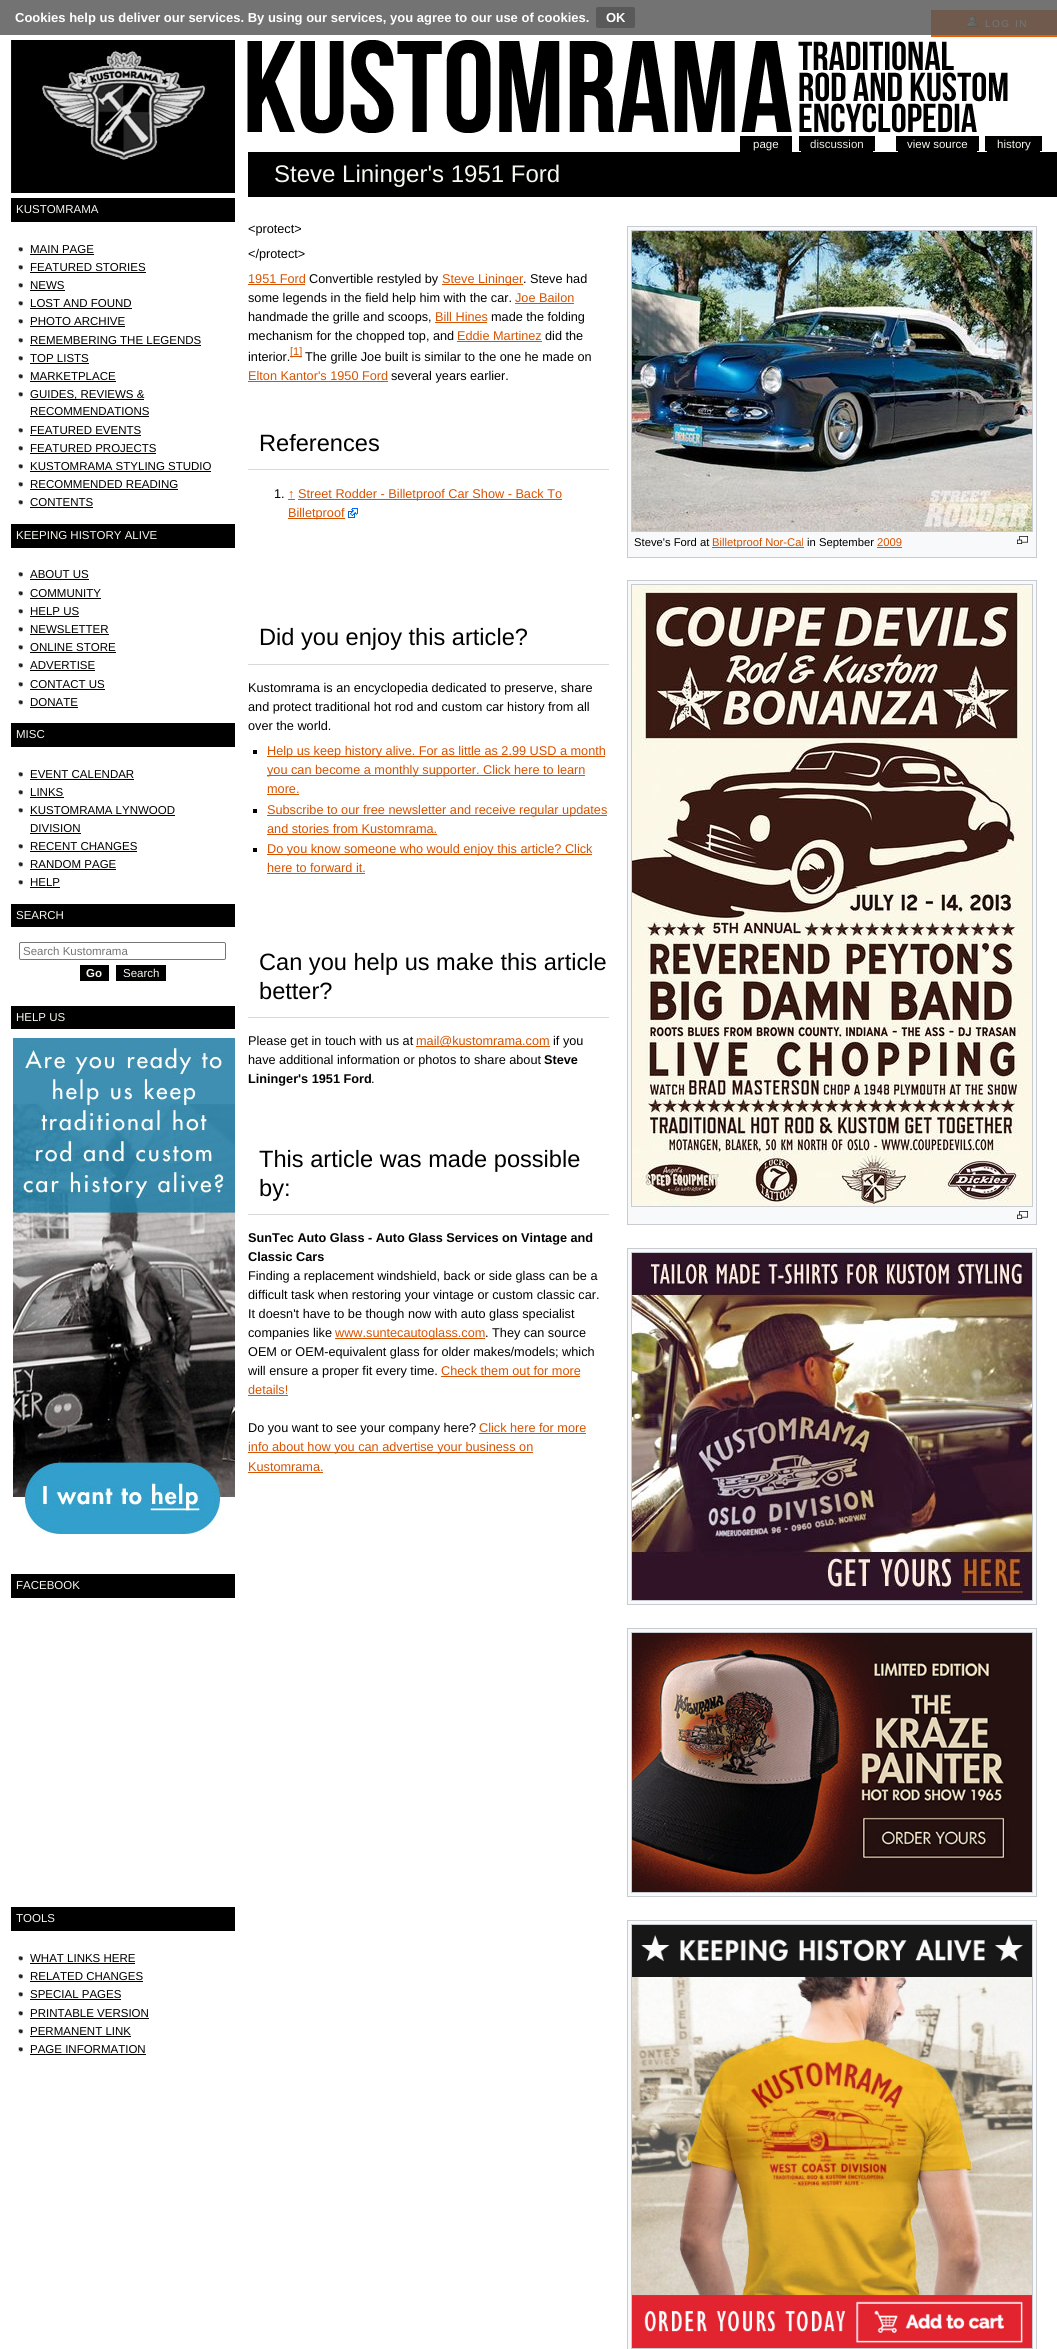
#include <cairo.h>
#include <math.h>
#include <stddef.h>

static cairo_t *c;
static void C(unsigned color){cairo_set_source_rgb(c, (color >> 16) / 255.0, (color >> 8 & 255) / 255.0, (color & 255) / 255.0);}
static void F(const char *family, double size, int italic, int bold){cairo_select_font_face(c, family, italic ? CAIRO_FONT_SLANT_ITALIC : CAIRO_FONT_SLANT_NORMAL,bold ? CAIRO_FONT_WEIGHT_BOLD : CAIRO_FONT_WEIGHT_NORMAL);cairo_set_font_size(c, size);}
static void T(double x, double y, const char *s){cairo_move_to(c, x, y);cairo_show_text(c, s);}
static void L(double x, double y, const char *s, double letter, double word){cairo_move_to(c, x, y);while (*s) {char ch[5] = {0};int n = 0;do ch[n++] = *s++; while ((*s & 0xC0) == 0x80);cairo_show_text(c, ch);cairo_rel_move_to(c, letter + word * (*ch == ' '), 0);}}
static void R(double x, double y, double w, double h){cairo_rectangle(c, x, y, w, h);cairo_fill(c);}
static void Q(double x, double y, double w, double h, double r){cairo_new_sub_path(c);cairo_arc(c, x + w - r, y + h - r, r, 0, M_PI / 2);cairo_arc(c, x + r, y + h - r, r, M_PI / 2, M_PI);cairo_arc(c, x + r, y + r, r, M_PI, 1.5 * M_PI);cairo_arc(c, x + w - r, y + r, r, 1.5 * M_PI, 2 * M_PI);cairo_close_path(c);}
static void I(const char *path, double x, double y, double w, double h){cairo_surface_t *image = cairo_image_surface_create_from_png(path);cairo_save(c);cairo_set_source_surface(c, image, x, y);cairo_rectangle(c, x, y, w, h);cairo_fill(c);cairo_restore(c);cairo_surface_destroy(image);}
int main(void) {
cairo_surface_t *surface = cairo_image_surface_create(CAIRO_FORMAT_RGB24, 1057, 2349);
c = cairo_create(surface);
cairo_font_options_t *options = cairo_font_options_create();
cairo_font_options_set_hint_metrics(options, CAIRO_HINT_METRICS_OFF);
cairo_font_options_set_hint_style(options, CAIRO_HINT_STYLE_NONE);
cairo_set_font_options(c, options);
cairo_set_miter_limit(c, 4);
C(0xffffff);
cairo_paint(c);
C(0x737373);
R(0,0,1057,35);
F("Liberation Sans",13,0,1);
C(0xffffff);
T(15,22,"Cookies help us deliver our services. By using our services, you agree to our use of cookies.");
C(0x595959);
Q(596,7,39,21,2);
cairo_fill(c);
C(0xffffff);
T(606,22,"OK");
C(0xee5b00);
R(931,35,126,2);
C(0x705a4d);
R(931,10,126,25);
I("1.png",967,15,11,12);
F("Liberation Sans",10,0,0);
C(0x757575);
L(985,27,"LOG IN",1.5,0);
I("2.png",247,40,761,94);
C(0x000000);
R(740,136,52,16);
F("Liberation Sans",11.5,0,0);
C(0xf8f8f0);
T(753,148,"page");
C(0x000000);
R(799,136,76,15);
C(0xede9e2);
T(810,148,"discussion");
C(0x000000);
R(801,151,72,1);
R(896,136,83,15);
C(0xf8f8f0);
T(907,148,"view source");
C(0x000000);
R(898,151,79,1);
R(985,136,57,15);
C(0xf8f8f0);
T(997,148,"history");
C(0x000000);
R(987,151,53,1);
I("3.png",9,40,226,158);
R(11,198,224,24);
C(0xf8f8f0);
T(16,213,"KUSTOMRAMA");
I("4.png",18,247,5,6);
C(0x000000);
T(30,253,"MAIN PAGE");
R(30,254,64,1);
I("4.png",18,265,5,6);
T(30,271,"FEATURED STORIES");
R(30,272,116,1);
I("4.png",18,283,5,6);
T(30,289,"NEWS");
R(30,290,35,1);
I("4.png",18,301,5,6);
T(30,307,"LOST AND FOUND");
R(30,308,102,1);
I("4.png",18,319,5,6);
T(30,325,"PHOTO ARCHIVE");
R(30,326,95,1);
I("4.png",18,338,5,6);
T(30,344,"REMEMBERING THE LEGENDS");
R(30,345,171,1);
I("4.png",18,356,5,6);
T(30,362,"TOP LISTS");
R(30,363,59,1);
I("4.png",18,374,5,6);
T(30,380,"MARKETPLACE");
R(30,381,86,1);
I("4.png",18,392,5,6);
R(30,399,114,1);
T(30,398,"GUIDES, REVIEWS &");
T(30,415,"RECOMMENDATIONS");
R(30,416,119,1);
I("4.png",18,428,5,6);
T(30,434,"FEATURED EVENTS");
R(30,435,111,1);
I("4.png",18,446,5,6);
T(30,452,"FEATURED PROJECTS");
R(30,453,126,1);
I("4.png",18,464,5,6);
T(30,470,"KUSTOMRAMA STYLING STUDIO");
R(30,471,181,1);
I("4.png",18,482,5,6);
T(30,488,"RECOMMENDED READING");
R(30,489,148,1);
I("4.png",18,500,5,6);
T(30,506,"CONTENTS");
R(30,507,63,1);
R(11,524,224,24);
C(0xf8f8f0);
T(16,539,"KEEPING HISTORY ALIVE");
I("4.png",18,572,5,6);
C(0x000000);
T(30,578,"ABOUT US");
R(30,579,59,1);
I("4.png",18,591,5,6);
T(30,597,"COMMUNITY");
R(30,598,71,1);
I("4.png",18,609,5,6);
T(30,615,"HELP US");
R(30,616,49,1);
I("4.png",18,627,5,6);
T(30,633,"NEWSLETTER");
R(30,634,79,1);
I("4.png",18,645,5,6);
T(30,651,"ONLINE STORE");
R(30,652,86,1);
I("4.png",18,663,5,6);
T(30,669,"ADVERTISE");
R(30,670,65,1);
I("4.png",18,682,5,6);
T(30,688,"CONTACT US");
R(30,689,75,1);
I("4.png",18,700,5,6);
T(30,706,"DONATE");
R(30,707,48,1);
R(11,723,224,24);
C(0xf8f8f0);
T(16,738,"MISC");
I("4.png",18,772,5,6);
C(0x000000);
T(30,778,"EVENT CALENDAR");
R(30,779,104,1);
I("4.png",18,790,5,6);
T(30,796,"LINKS");
R(30,797,34,1);
I("4.png",18,808,5,6);
T(30,814,"KUSTOMRAMA LYNWOOD");
R(30,815,145,1);
T(30,832,"DIVISION");
R(30,833,51,1);
I("4.png",18,844,5,6);
T(30,850,"RECENT CHANGES");
R(30,851,107,1);
I("4.png",18,862,5,6);
T(30,868,"RANDOM PAGE");
R(30,869,86,1);
I("4.png",18,880,5,6);
T(30,886,"HELP");
R(30,887,30,1);
R(11,904,224,23);
C(0xf8f8f0);
T(16,919,"SEARCH");
Q(19.5,942.5,206,17,1.5);
C(0x767676);
cairo_set_line_width(c,1);
cairo_stroke(c);
C(0x757575);
T(23,955,"Search Kustomrama");
C(0x000000);
R(80,965,29,16);
F("Liberation Sans",11.5,0,1);
C(0xf8f8f0);
T(86,977,"Go");
C(0x000000);
R(116,965,50,16);
F("Liberation Sans",11.5,0,0);
C(0xf8f8f0);
T(123,977,"Search");
C(0x000000);
R(11,1006,224,23);
C(0xf8f8f0);
T(16,1021,"HELP US");
I("5.png",13,1038,222,496);
C(0x000000);
R(11,1574,224,24);
C(0xf8f8f0);
T(16,1589,"FACEBOOK");
C(0x000000);
R(11,1907,224,24);
C(0xf8f8f0);
T(16,1922,"TOOLS");
I("4.png",18,1956,5,6);
C(0x000000);
T(30,1962,"WHAT LINKS HERE");
R(30,1963,105,1);
I("4.png",18,1974,5,6);
T(30,1980,"RELATED CHANGES");
R(30,1981,113,1);
I("4.png",18,1992,5,6);
T(30,1998,"SPECIAL PAGES");
R(30,1999,91,1);
I("4.png",18,2011,5,6);
T(30,2017,"PRINTABLE VERSION");
R(30,2018,119,1);
I("4.png",18,2029,5,6);
T(30,2035,"PERMANENT LINK");
R(30,2036,101,1);
I("4.png",18,2047,5,6);
T(30,2053,"PAGE INFORMATION");
R(30,2054,116,1);
R(248,152,809,45);
F("Liberation Sans",24,0,0);
C(0xf8f8f0);
T(274,182,"Steve Lininger's 1951 Ford");
F("Liberation Sans",12.7,0,0);
C(0x000000);
T(248,233,"<protect>");
T(248,258,"</protect>");
C(0xd75302);
T(248,283,"1951 Ford");
R(248,284,57,1);
C(0x000000);
T(309,283,"Convertible restyled by");
C(0xd75302);
R(442,284,81,1);
T(442,283,"Steve Lininger");
C(0x000000);
T(523,283,". Steve had");
T(248,302,"some legends in the field help him with the car.");
C(0xd75302);
T(515,302,"Joe Bailon");
R(515,303,59,1);
C(0x000000);
T(248,321,"handmade the grille and scoops,");
C(0xd75302);
T(435,321,"Bill Hines");
R(435,322,52,1);
C(0x000000);
T(491,321,"made the folding");
T(248,340,"mechanism for the chopped top, and");
C(0xd75302);
T(457,340,"Eddie Martinez");
R(457,341,85,1);
C(0x000000);
T(545,340,"did the");
T(248,361,"interior.");
C(0xd75302);
R(290,356,12,1);
F("Liberation Sans",11,0,0);
T(290,355,"[1]");
F("Liberation Sans",12.7,0,0);
C(0x000000);
T(305,361,"The grille Joe built is similar to the one he made on");
C(0xd75302);
T(248,380,"Elton Kantor's 1950 Ford");
R(248,381,140,1);
C(0x000000);
T(391,380,"several years earlier.");
C(0xd9d9d9);
R(248,469,361,1);
F("Liberation Sans",23.6,0,0);
C(0x000000);
T(259,451,"References");
F("Liberation Sans",12.7,0,0);
T(274,498,"1.");
C(0xd75302);
T(288,498,"↑");
R(288,499,7,1);
R(298,499,264,1);
T(298,498,"Street Rodder - Billetproof Car Show - Back To");
R(288,518,57,1);
T(288,517,"Billetproof");
I("6.png",348,508,10,10);
C(0xf8f9fa);
cairo_rectangle(c,627.5,226.5,409,331);
cairo_fill_preserve(c);
C(0xc8ccd1);
cairo_stroke(c);
cairo_rectangle(c,631.5,230.5,401,301);
cairo_stroke(c);
I("7.png",632,231,400,300);
F("Liberation Sans",11.25,0,0);
C(0x000000);
T(634,546,"Steve's Ford at");
C(0xd75302);
R(712,547,92,1);
T(712,546,"Billetproof Nor-Cal");
C(0x000000);
T(807,546,"in September");
C(0xd75302);
T(877,546,"2009");
R(877,547,25,1);
I("8.png",1017,536,11,8);
C(0xf8f9fa);
cairo_rectangle(c,627.5,580.5,409,644);
cairo_fill_preserve(c);
C(0xc8ccd1);
cairo_stroke(c);
cairo_rectangle(c,631.5,584.5,401,622);
cairo_stroke(c);
I("9.png",632,585,400,621);
I("8.png",1017,1211,11,8);
C(0xd9d9d9);
R(248,664,361,1);
F("Liberation Sans",23.6,0,0);
C(0x000000);
T(259,645,"Did you enjoy this article?");
F("Liberation Sans",12.7,0,0);
T(248,692,"Kustomrama is an encyclopedia dedicated to preserve, share");
T(248,711,"and protect traditional hot rod and custom car history from all");
T(248,730,"over the world.");
R(253,750,4,4);
C(0xd75302);
R(267,756,338,1);
T(267,755,"Help us keep history alive. For as little as 2.99 USD a month");
R(267,775,318,1);
T(267,774,"you can become a monthly supporter. Click here to learn");
T(267,793,"more.");
R(267,794,32,1);
C(0x000000);
R(253,809,4,4);
C(0xd75302);
R(267,815,340,1);
T(267,814,"Subscribe to our free newsletter and receive regular updates");
T(267,833,"and stories from Kustomrama.");
R(267,834,170,1);
C(0x000000);
R(253,848,4,4);
C(0xd75302);
R(267,854,325,1);
T(267,853,"Do you know someone who would enjoy this article? Click");
T(267,872,"here to forward it.");
R(267,873,98,1);
C(0xd9d9d9);
R(248,1017,361,1);
F("Liberation Sans",23.6,0,0);
C(0x000000);
T(259,970,"Can you help us make this article");
T(259,999,"better?");
F("Liberation Sans",12.7,0,0);
T(248,1045,"Please get in touch with us at");
C(0xd75302);
R(416,1046,134,1);
T(416,1045,"mail@kustomrama.com");
C(0x000000);
T(553,1045,"if you");
T(248,1064,"have additional information or photos to share about");
F("Liberation Sans",12.7,0,1);
T(544,1064,"Steve");
T(248,1083,"Lininger's 1951 Ford");
F("Liberation Sans",12.7,0,0);
T(371,1083,".");
C(0xd9d9d9);
R(248,1214,361,1);
F("Liberation Sans",23.6,0,0);
C(0x000000);
T(259,1167,"This article was made possible");
T(259,1196,"by:");
F("Liberation Sans",12.7,0,1);
T(248,1242,"SunTec Auto Glass - Auto Glass Services on Vintage and");
T(248,1261,"Classic Cars");
F("Liberation Sans",12.7,0,0);
T(248,1280,"Finding a replacement windshield, back or side glass can be a");
T(248,1299,"difficult task when restoring your vintage or custom classic car.");
T(248,1318,"It doesn't have to be though now with auto glass specialist");
T(248,1337,"companies like");
C(0xd75302);
R(335,1338,150,1);
T(335,1337,"www.suntecautoglass.com");
C(0x000000);
T(485,1337,". They can source");
T(248,1356,"OEM or OEM-equivalent glass for older makes/models; which");
T(248,1375,"will ensure a proper fit every time.");
C(0xd75302);
T(441,1375,"Check them out for more");
R(441,1376,139,1);
T(248,1394,"details!");
R(248,1395,40,1);
C(0x000000);
T(248,1432,"Do you want to see your company here?");
C(0xd75302);
T(479,1432,"Click here for more");
R(479,1433,107,1);
R(248,1452,285,1);
T(248,1451,"info about how you can advertise your business on");
T(248,1471,"Kustomrama.");
R(248,1472,75,1);
C(0xf8f9fa);
cairo_rectangle(c,627.5,1248.5,409,356);
cairo_fill_preserve(c);
C(0xc8ccd1);
cairo_stroke(c);
cairo_rectangle(c,631.5,1252.5,401,348);
cairo_stroke(c);
I("10.png",632,1253,400,347);
C(0xf8f9fa);
cairo_rectangle(c,627.5,1628.5,409,268);
cairo_fill_preserve(c);
C(0xc8ccd1);
cairo_stroke(c);
cairo_rectangle(c,631.5,1632.5,401,260);
cairo_stroke(c);
I("11.png",632,1633,400,259);
C(0xf8f9fa);
cairo_rectangle(c,627.5,1920.5,409,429);
cairo_fill_preserve(c);
C(0xc8ccd1);
cairo_stroke(c);
cairo_rectangle(c,631.5,1924.5,401,424);
cairo_stroke(c);
I("12.png",632,1925,400,423);
cairo_surface_write_to_png(surface, "o.png");
cairo_font_options_destroy(options);
cairo_destroy(c);
cairo_surface_destroy(surface);
return 0;
}
